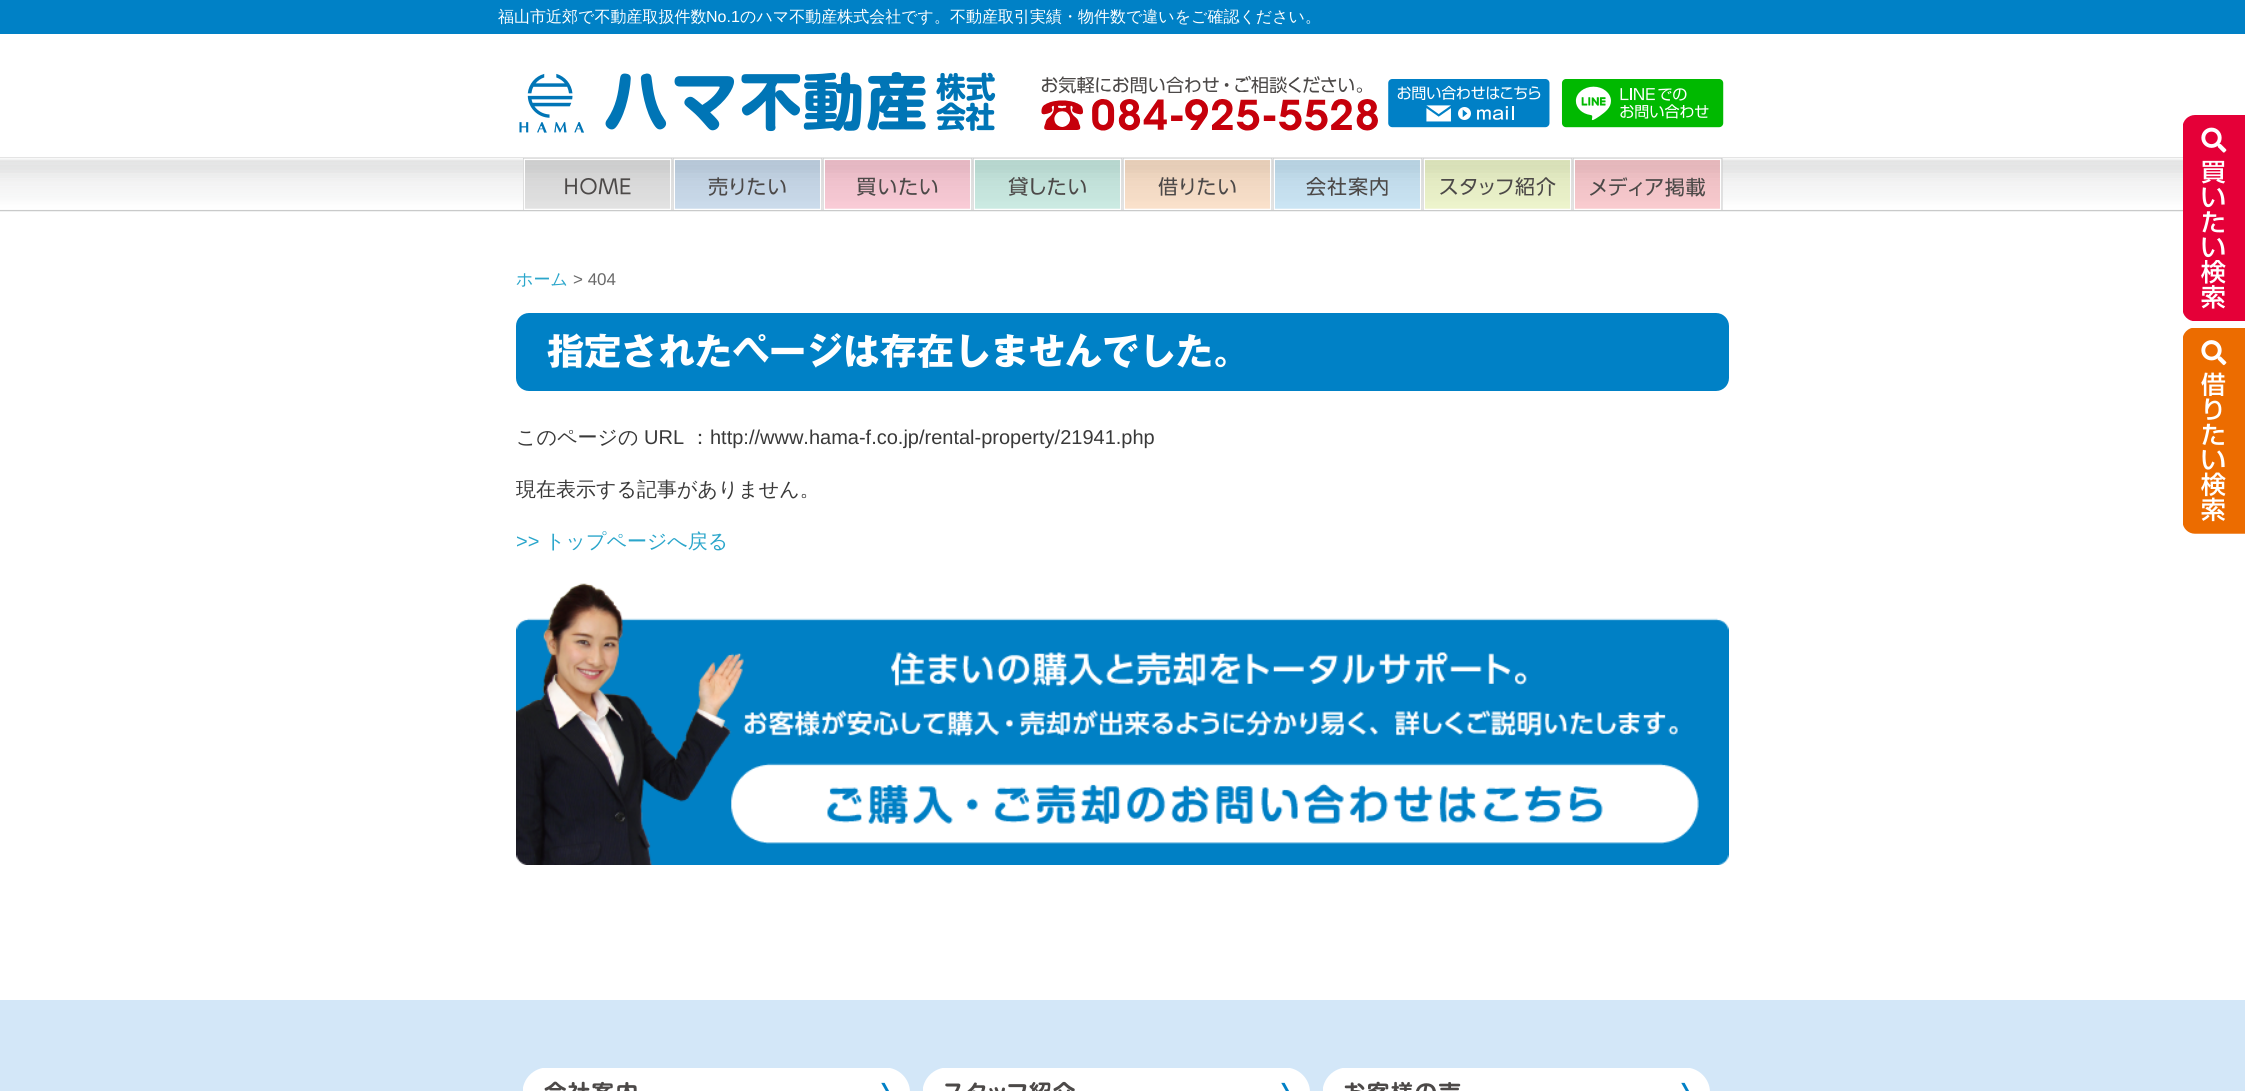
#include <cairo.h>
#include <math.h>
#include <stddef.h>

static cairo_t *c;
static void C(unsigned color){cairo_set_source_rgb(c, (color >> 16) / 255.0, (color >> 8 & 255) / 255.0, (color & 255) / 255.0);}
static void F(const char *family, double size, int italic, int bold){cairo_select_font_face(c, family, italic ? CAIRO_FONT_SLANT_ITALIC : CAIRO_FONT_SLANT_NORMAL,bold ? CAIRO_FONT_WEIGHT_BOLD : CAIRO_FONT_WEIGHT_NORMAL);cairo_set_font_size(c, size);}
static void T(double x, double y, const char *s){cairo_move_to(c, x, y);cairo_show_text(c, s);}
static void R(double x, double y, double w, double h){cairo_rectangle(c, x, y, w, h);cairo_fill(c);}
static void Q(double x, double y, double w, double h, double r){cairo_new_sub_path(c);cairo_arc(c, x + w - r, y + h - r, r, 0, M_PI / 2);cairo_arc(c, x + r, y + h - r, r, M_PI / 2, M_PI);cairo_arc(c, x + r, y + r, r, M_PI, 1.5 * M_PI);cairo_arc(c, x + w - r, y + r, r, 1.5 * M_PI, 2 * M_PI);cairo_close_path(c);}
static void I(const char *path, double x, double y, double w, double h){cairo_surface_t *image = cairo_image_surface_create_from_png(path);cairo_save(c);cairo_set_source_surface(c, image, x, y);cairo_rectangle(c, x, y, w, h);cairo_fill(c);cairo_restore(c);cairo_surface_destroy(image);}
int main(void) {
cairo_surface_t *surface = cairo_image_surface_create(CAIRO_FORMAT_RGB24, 2245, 1091);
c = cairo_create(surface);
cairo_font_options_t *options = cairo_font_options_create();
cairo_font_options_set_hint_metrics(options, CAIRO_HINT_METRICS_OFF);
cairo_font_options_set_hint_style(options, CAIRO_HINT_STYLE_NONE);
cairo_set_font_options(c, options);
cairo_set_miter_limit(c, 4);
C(0xffffff);
cairo_paint(c);
C(0x0081c6);
R(0,0,2245,34);
F("WenQuanYi Zen Hei Medium",16,0,0);
C(0xffffff);
T(498,22,"福山市近郊で不動産取扱件数");
F("Liberation Sans",16,0,0);
T(706,22,"No.1");
F("WenQuanYi Zen Hei Medium",16,0,0);
T(740,22,"のハマ不動産株式会社です。不動産取引実績・物件数で違いをご確認ください。");
I("1.png",519,72,477,61);
I("2.png",1041,75,337,56);
I("3.png",1388,79,162,49);
I("4.png",1561,79,163,49);
I("5.png",0,157,2183,55);
I("6.png",523,158,150,52);
I("7.png",673,158,150,52);
I("8.png",823,158,150,52);
I("9.png",973,158,150,52);
I("10.png",1123,158,150,52);
I("11.png",1273,158,150,52);
I("12.png",1423,158,150,52);
I("13.png",1573,158,150,52);
F("WenQuanYi Zen Hei Medium",17,0,0);
C(0x2ba6cb);
T(516,285,"ホーム");
F("Liberation Sans",17,0,0);
C(0x696969);
T(573,285,"> 404");
C(0x0081c6);
Q(516,313,1213,78,13);
cairo_fill(c);
F("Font",37,0,1);
C(0xffffff);
T(547,365,"指定されたページは存在しませんでした。");
F("WenQuanYi Zen Hei Medium",20,0,0);
C(0x393939);
T(516,444,"このページの");
F("Liberation Sans",20,0,0);
T(644,444,"URL");
F("WenQuanYi Zen Hei Medium",20,0,0);
T(690,444,"：");
F("Liberation Sans",20,0,0);
T(710,444,"http://www.hama-f.co.jp/rental-property/21941.php");
F("WenQuanYi Zen Hei Medium",20,0,0);
T(516,496,"現在表示する記事がありません。");
F("Liberation Sans",20,0,0);
C(0x2ba6cb);
T(516,548,">>");
F("WenQuanYi Zen Hei Medium",20,0,0);
T(545,548,"トップページへ戻る");
I("14.png",516,583,1213,282);
C(0xd3e7f8);
R(0,1000,2245,91);
I("15.png",523,1068,387,23);
I("16.png",923,1068,387,23);
I("17.png",1323,1068,387,23);
I("18.png",2183,115,62,206);
I("19.png",2183,328,62,206);
cairo_surface_write_to_png(surface, "o.png");
cairo_font_options_destroy(options);
cairo_destroy(c);
cairo_surface_destroy(surface);
return 0;
}
